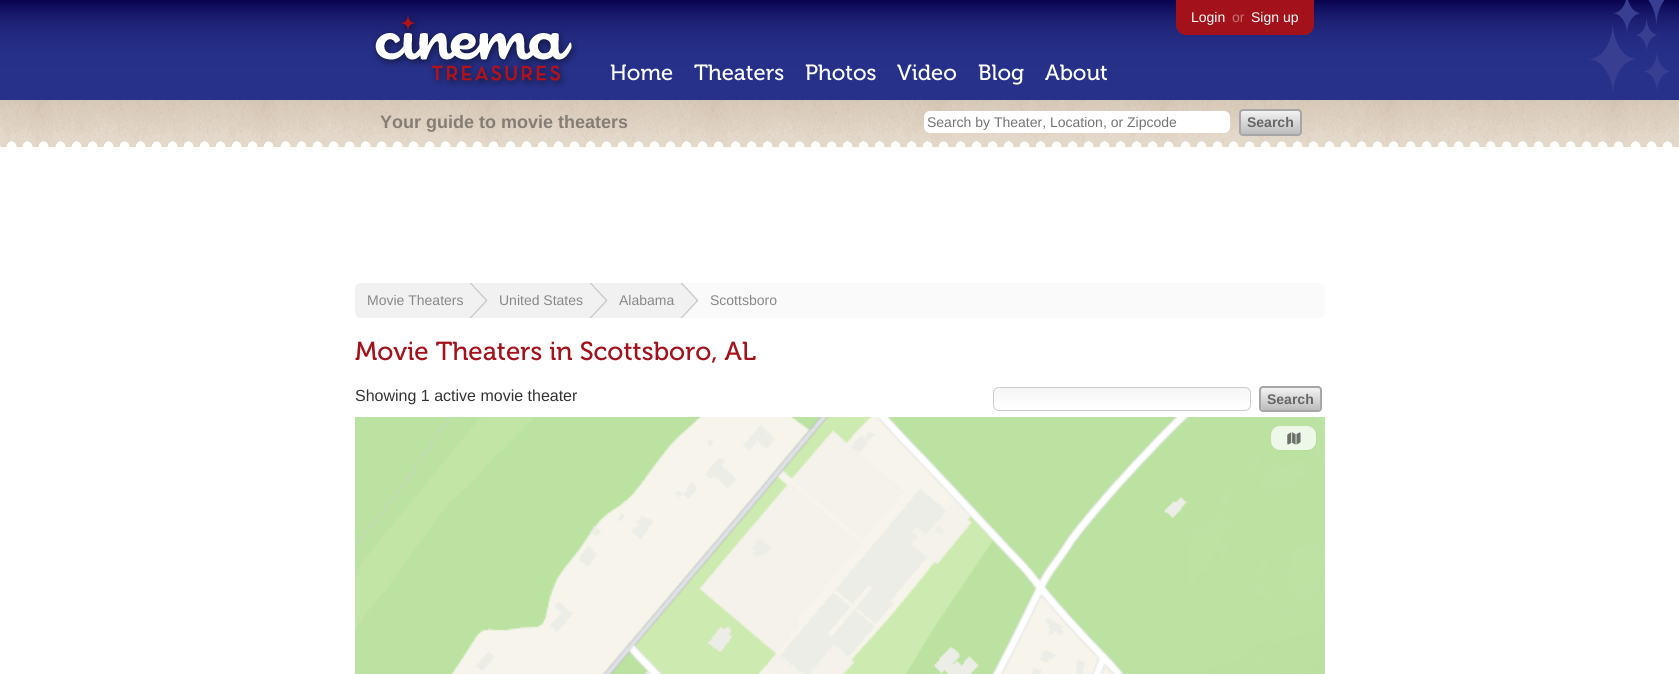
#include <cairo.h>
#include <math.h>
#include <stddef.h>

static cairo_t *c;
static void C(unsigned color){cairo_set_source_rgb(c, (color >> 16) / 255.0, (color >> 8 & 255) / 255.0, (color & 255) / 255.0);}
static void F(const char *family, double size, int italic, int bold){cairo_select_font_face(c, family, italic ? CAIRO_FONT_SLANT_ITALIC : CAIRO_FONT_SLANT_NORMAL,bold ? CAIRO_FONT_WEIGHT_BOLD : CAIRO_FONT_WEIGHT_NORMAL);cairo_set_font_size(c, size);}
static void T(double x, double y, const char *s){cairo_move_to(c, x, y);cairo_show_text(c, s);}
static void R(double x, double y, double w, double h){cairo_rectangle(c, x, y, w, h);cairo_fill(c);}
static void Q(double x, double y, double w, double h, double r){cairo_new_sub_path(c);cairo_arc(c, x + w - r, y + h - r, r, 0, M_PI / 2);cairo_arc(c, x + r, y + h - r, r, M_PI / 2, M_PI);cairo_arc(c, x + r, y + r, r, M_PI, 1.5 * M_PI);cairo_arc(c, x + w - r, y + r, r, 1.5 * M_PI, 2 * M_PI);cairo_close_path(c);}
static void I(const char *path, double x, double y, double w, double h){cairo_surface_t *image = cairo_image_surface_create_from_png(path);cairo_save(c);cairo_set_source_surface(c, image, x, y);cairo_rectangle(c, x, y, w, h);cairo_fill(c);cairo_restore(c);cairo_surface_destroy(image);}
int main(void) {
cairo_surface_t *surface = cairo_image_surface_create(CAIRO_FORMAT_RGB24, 1679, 674);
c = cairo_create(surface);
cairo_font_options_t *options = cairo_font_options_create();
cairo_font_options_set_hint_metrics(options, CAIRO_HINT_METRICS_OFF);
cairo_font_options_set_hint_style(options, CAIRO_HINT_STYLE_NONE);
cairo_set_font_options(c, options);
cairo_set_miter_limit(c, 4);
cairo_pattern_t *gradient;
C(0xffffff);
cairo_paint(c);
I("1.png",0,0,1679,100);
I("2.png",372,15,206,73);
F("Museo",22,0,0);
C(0xffffff);
T(610,80,"Home");
T(694,80,"Theaters");
T(805,80,"Photos");
T(897,80,"Video");
T(978,80,"Blog");
T(1045,80,"About");
C(0xa3121b);
cairo_new_path(c);
cairo_move_to(c,1176,0);
cairo_line_to(c,1314,0);
cairo_line_to(c,1314,25);
cairo_curve_to(c,1314,30.5,1309.5,35,1304,35);
cairo_line_to(c,1186,35);
cairo_curve_to(c,1180.5,35,1176,30.5,1176,25);
cairo_close_path(c);
cairo_fill(c);
F("Liberation Sans",14,0,0);
C(0xffffff);
T(1191,22,"Login");
C(0xc87176);
T(1232,22,"or");
C(0xffffff);
T(1251,22,"Sign up");
I("3.png",1589,0,81,93);
I("4.png",0,100,1679,48);
F("Liberation Sans",18,0,1);
C(0x857d74);
T(380,128,"Your guide to movie theaters");
C(0xffffff);
Q(924,111,306,22,6);
cairo_fill(c);
F("Liberation Sans",14,0,0);
C(0x757575);
T(927,127,"Search by Theater, Location, or Zipcode");
gradient = cairo_pattern_create_linear(1271,111,1271,134);
cairo_pattern_add_color_stop_rgba(gradient,0,0.949,0.949,0.949,1);
cairo_pattern_add_color_stop_rgba(gradient,1,0.741,0.741,0.741,1);
cairo_set_source(c,gradient);
cairo_pattern_destroy(gradient);
Q(1241,111,59,23,2);
cairo_fill(c);
Q(1240,110,61,25,3);
C(0xa6a6a6);
cairo_stroke(c);
F("Liberation Sans",14,0,1);
C(0x666666);
T(1247,127,"Search");
C(0xfafafa);
Q(355,283,970,35,6);
cairo_fill(c);
C(0xf1f1f1);
cairo_new_path(c);
cairo_move_to(c,361,283);
cairo_line_to(c,487,283);
cairo_line_to(c,487,318);
cairo_line_to(c,361,318);
cairo_curve_to(c,357.5,318,355,315.5,355,312);
cairo_line_to(c,355,289);
cairo_curve_to(c,355,285.5,357.5,283,361,283);
cairo_close_path(c);
cairo_fill(c);
I("5.png",469,283,18,35);
F("Liberation Sans",14,0,0);
C(0x888888);
T(367,305,"Movie Theaters");
C(0xf1f1f1);
R(487,283,211,35);
I("5.png",589,283,18,35);
C(0x888888);
T(499,305,"United States");
I("6.png",680,283,18,35);
T(619,305,"Alabama");
T(710,305,"Scottsboro");
F("Museo",26,0,0);
C(0xa3121b);
T(355,360,"Movie Theaters in Scottsboro, AL");
F("Liberation Sans",16,0,0);
C(0x333333);
T(355,401,"Showing 1 active movie theater");
cairo_save(c);
Q(993,387,258,24,6);
cairo_clip(c);
gradient = cairo_pattern_create_linear(1122,388,1122,410);
cairo_pattern_add_color_stop_rgba(gradient,0,0.965,0.965,0.965,1);
cairo_pattern_add_color_stop_rgba(gradient,1,1,1,1,1);
cairo_set_source(c,gradient);
cairo_pattern_destroy(gradient);
R(993,388,258,22);
cairo_restore(c);
Q(993.5,387.5,257,23,5.5);
C(0xcccccc);
cairo_set_line_width(c,1);
cairo_stroke(c);
gradient = cairo_pattern_create_linear(1291,388,1291,410);
cairo_pattern_add_color_stop_rgba(gradient,0,0.949,0.949,0.949,1);
cairo_pattern_add_color_stop_rgba(gradient,1,0.741,0.741,0.741,1);
cairo_set_source(c,gradient);
cairo_pattern_destroy(gradient);
Q(1261,388,59,22,2);
cairo_fill(c);
Q(1260,387,61,24,3);
C(0xa6a6a6);
cairo_set_line_width(c,2);
cairo_stroke(c);
F("Liberation Sans",14,0,1);
C(0x666666);
T(1267,404,"Search");
I("7.png",355,417,834,257);
I("8.png",1189,417,136,257);
Q(1271.25,426.25,45.5,24.5,9.75);
C(0xb3d79a);
cairo_set_line_width(c,.5);
cairo_stroke(c);
cairo_set_source_rgba(c,1,1,1,0.75);
Q(1271,426,45,24,9);
cairo_fill(c);
I("9.png",1287,432,14,13);
cairo_surface_write_to_png(surface, "o.png");
cairo_font_options_destroy(options);
cairo_destroy(c);
cairo_surface_destroy(surface);
return 0;
}
